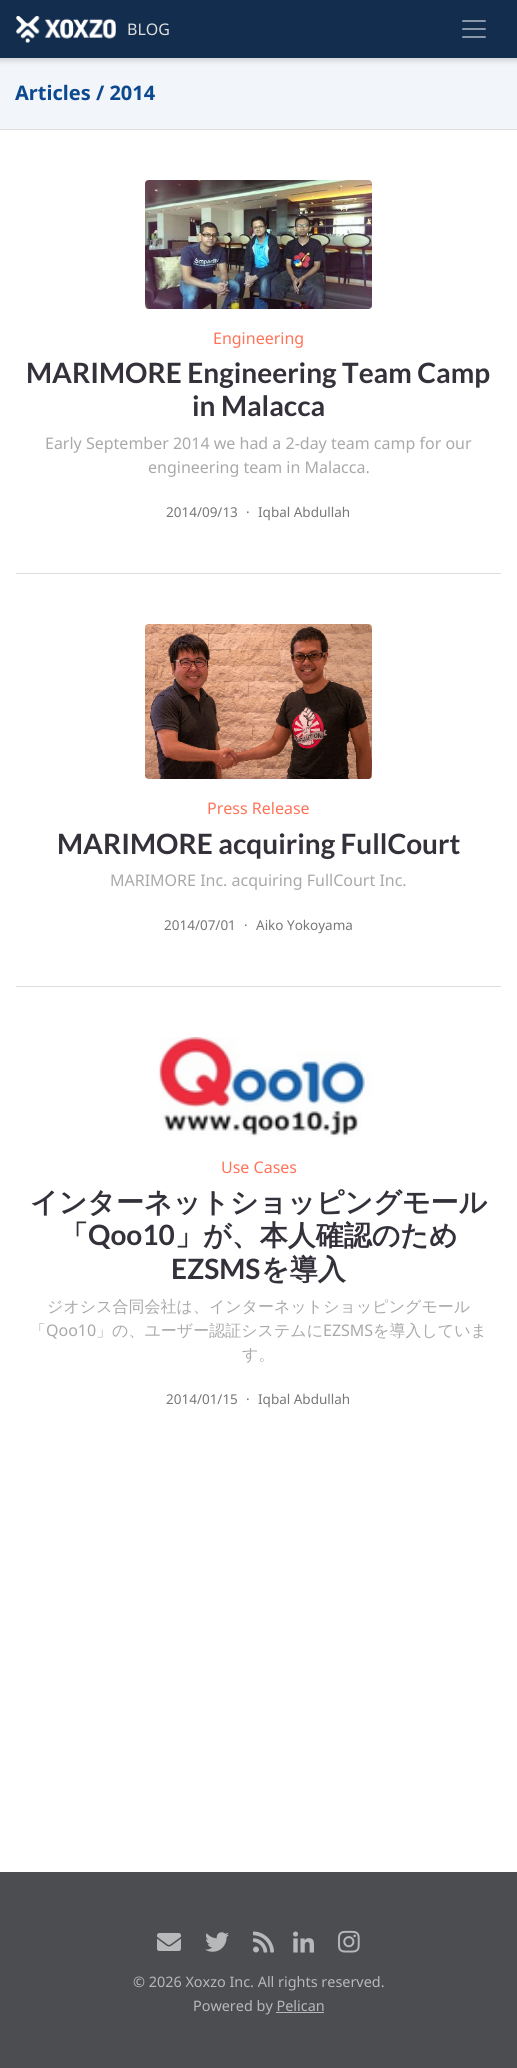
#include <cairo.h>
#include <math.h>
#include <stddef.h>

static cairo_t *c;
static void C(unsigned color){cairo_set_source_rgb(c, (color >> 16) / 255.0, (color >> 8 & 255) / 255.0, (color & 255) / 255.0);}
static void F(const char *family, double size, int italic, int bold){cairo_select_font_face(c, family, italic ? CAIRO_FONT_SLANT_ITALIC : CAIRO_FONT_SLANT_NORMAL,bold ? CAIRO_FONT_WEIGHT_BOLD : CAIRO_FONT_WEIGHT_NORMAL);cairo_set_font_size(c, size);}
static void T(double x, double y, const char *s){cairo_move_to(c, x, y);cairo_show_text(c, s);}
static void R(double x, double y, double w, double h){cairo_rectangle(c, x, y, w, h);cairo_fill(c);}
static void Q(double x, double y, double w, double h, double r){cairo_new_sub_path(c);cairo_arc(c, x + w - r, y + h - r, r, 0, M_PI / 2);cairo_arc(c, x + r, y + h - r, r, M_PI / 2, M_PI);cairo_arc(c, x + r, y + r, r, M_PI, 1.5 * M_PI);cairo_arc(c, x + w - r, y + r, r, 1.5 * M_PI, 2 * M_PI);cairo_close_path(c);}
static void S(double x, double y, double w, double h, double r, double blur, double alpha){cairo_push_group_with_content(c, CAIRO_CONTENT_ALPHA);cairo_set_operator(c, CAIRO_OPERATOR_SOURCE);for (int i = 15; i >= -15 && fmin(w, h) + blur * i / 3 > 0; i -= 2) {double e = blur * i / 6;cairo_set_source_rgba(c, 0, 0, 0, alpha * erfc((i - 1) / 8.5) / 2);Q(x - e, y - e, w + 2 * e, h + 2 * e, fmax(0, fmin(r + e + blur * .6, fmin(w, h) / 2 + e)));cairo_fill(c);}cairo_pattern_t *soft = cairo_pop_group(c);cairo_mask(c, soft);cairo_pattern_destroy(soft);}
static void I(const char *path, double x, double y, double w, double h){cairo_surface_t *image = cairo_image_surface_create_from_png(path);cairo_save(c);cairo_set_source_surface(c, image, x, y);cairo_rectangle(c, x, y, w, h);cairo_fill(c);cairo_restore(c);cairo_surface_destroy(image);}
int main(void) {
cairo_surface_t *surface = cairo_image_surface_create(CAIRO_FORMAT_RGB24, 517, 2068);
c = cairo_create(surface);
cairo_font_options_t *options = cairo_font_options_create();
cairo_font_options_set_hint_metrics(options, CAIRO_HINT_METRICS_OFF);
cairo_font_options_set_hint_style(options, CAIRO_HINT_STYLE_NONE);
cairo_set_font_options(c, options);
cairo_set_miter_limit(c, 4);
C(0xffffff);
cairo_paint(c);
C(0xf2f5f9);
R(0,58,517,71);
C(0x000000);
S(-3,-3,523,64,0,2.5,.15);
C(0x132d4e);
R(0,0,517,58);
I("1.png",16,16,100,27);
F("Noto Sans",16,0,0);
C(0xdddddd);
T(127,35,"BLOG");
I("2.png",462,20,24,18);
R(0,129,517,1);
F("Noto Sans",20,0,1);
C(0x0c498e);
T(15,100,"Articles / 2014");
I("3.png",145,180,227,129);
F("Noto Sans",16,0,0);
C(0xff7359);
T(213,344,"Engineering");
F("Lato",28,0,1);
C(0x35313b);
T(26,383,"MARIMORE Engineering Team Camp");
T(192,416,"in Malacca");
F("Noto Sans",16,0,0);
C(0xa9a9a9);
T(45,449,"Early September 2014 we had a 2-day team camp for our");
T(148,473,"engineering team in Malacca.");
F("Noto Sans",13.5,0,0);
C(0x777777);
T(166,517,"2014/09/13");
T(246,517,"·");
T(258,517,"Iqbal Abdullah");
C(0xdddddd);
R(16,573,485,1);
I("4.png",145,624,227,155);
F("Noto Sans",16,0,0);
C(0xff7359);
T(207,814,"Press Release");
F("Lato",28,0,1);
C(0x35313b);
T(57,854,"MARIMORE acquiring FullCourt");
F("Noto Sans",16,0,0);
C(0xa9a9a9);
T(110,886,"MARIMORE Inc. acquiring FullCourt Inc.");
F("Noto Sans",13.5,0,0);
C(0x777777);
T(164,930,"2014/07/01");
T(244,930,"·");
T(256,930,"Aiko Yokoyama");
C(0xdddddd);
R(16,986,485,1);
I("5.png",158,1037,214,100);
F("Noto Sans",16,0,0);
C(0xff7359);
T(221,1173,"Use Cases");
F("WenQuanYi Zen Hei",28,0,1);
C(0x35313b);
T(30,1212,"インターネットショッピングモール");
T(60,1245,"「");
F("Lato",28,0,1);
T(88,1245,"Qoo10");
F("WenQuanYi Zen Hei",28,0,1);
T(175,1245,"」が、本人確認のため");
F("Lato",28,0,1);
T(171,1279,"EZSMS");
F("WenQuanYi Zen Hei",28,0,1);
T(261,1279,"を導入");
F("WenQuanYi Zen Hei Medium",16,0,0);
C(0xa9a9a9);
T(47,1312,"ジオシス合同会社は、インターネットショッピングモール");
T(30,1336,"「");
F("Noto Sans",16,0,0);
T(46,1336,"Qoo10");
F("WenQuanYi Zen Hei Medium",16,0,0);
T(96,1336,"」の、ユーザー認証システムに");
F("Noto Sans",16,0,0);
T(323,1336,"EZSMS");
F("WenQuanYi Zen Hei Medium",16,0,0);
T(373,1336,"を導入していま");
T(242,1360,"す。");
F("Noto Sans",13.5,0,0);
C(0x777777);
T(166,1404,"2014/01/15");
T(246,1404,"·");
T(258,1404,"Iqbal Abdullah");
C(0x4b4d51);
R(0,1872,517,196);
I("6.png",157,1933,24,18);
I("7.png",205,1932,24,20);
I("8.png",253,1931,21,22);
I("9.png",293,1931,21,22);
I("10.png",338,1930,22,23);
F("Noto Sans",14.4,0,0);
C(0xb7b8b9);
T(133,1987,"© 2026 Xoxzo Inc. All rights reserved.");
T(193,2011,"Powered by Pelican");
R(276,2012,48,1);
cairo_surface_write_to_png(surface, "o.png");
cairo_font_options_destroy(options);
cairo_destroy(c);
cairo_surface_destroy(surface);
return 0;
}
